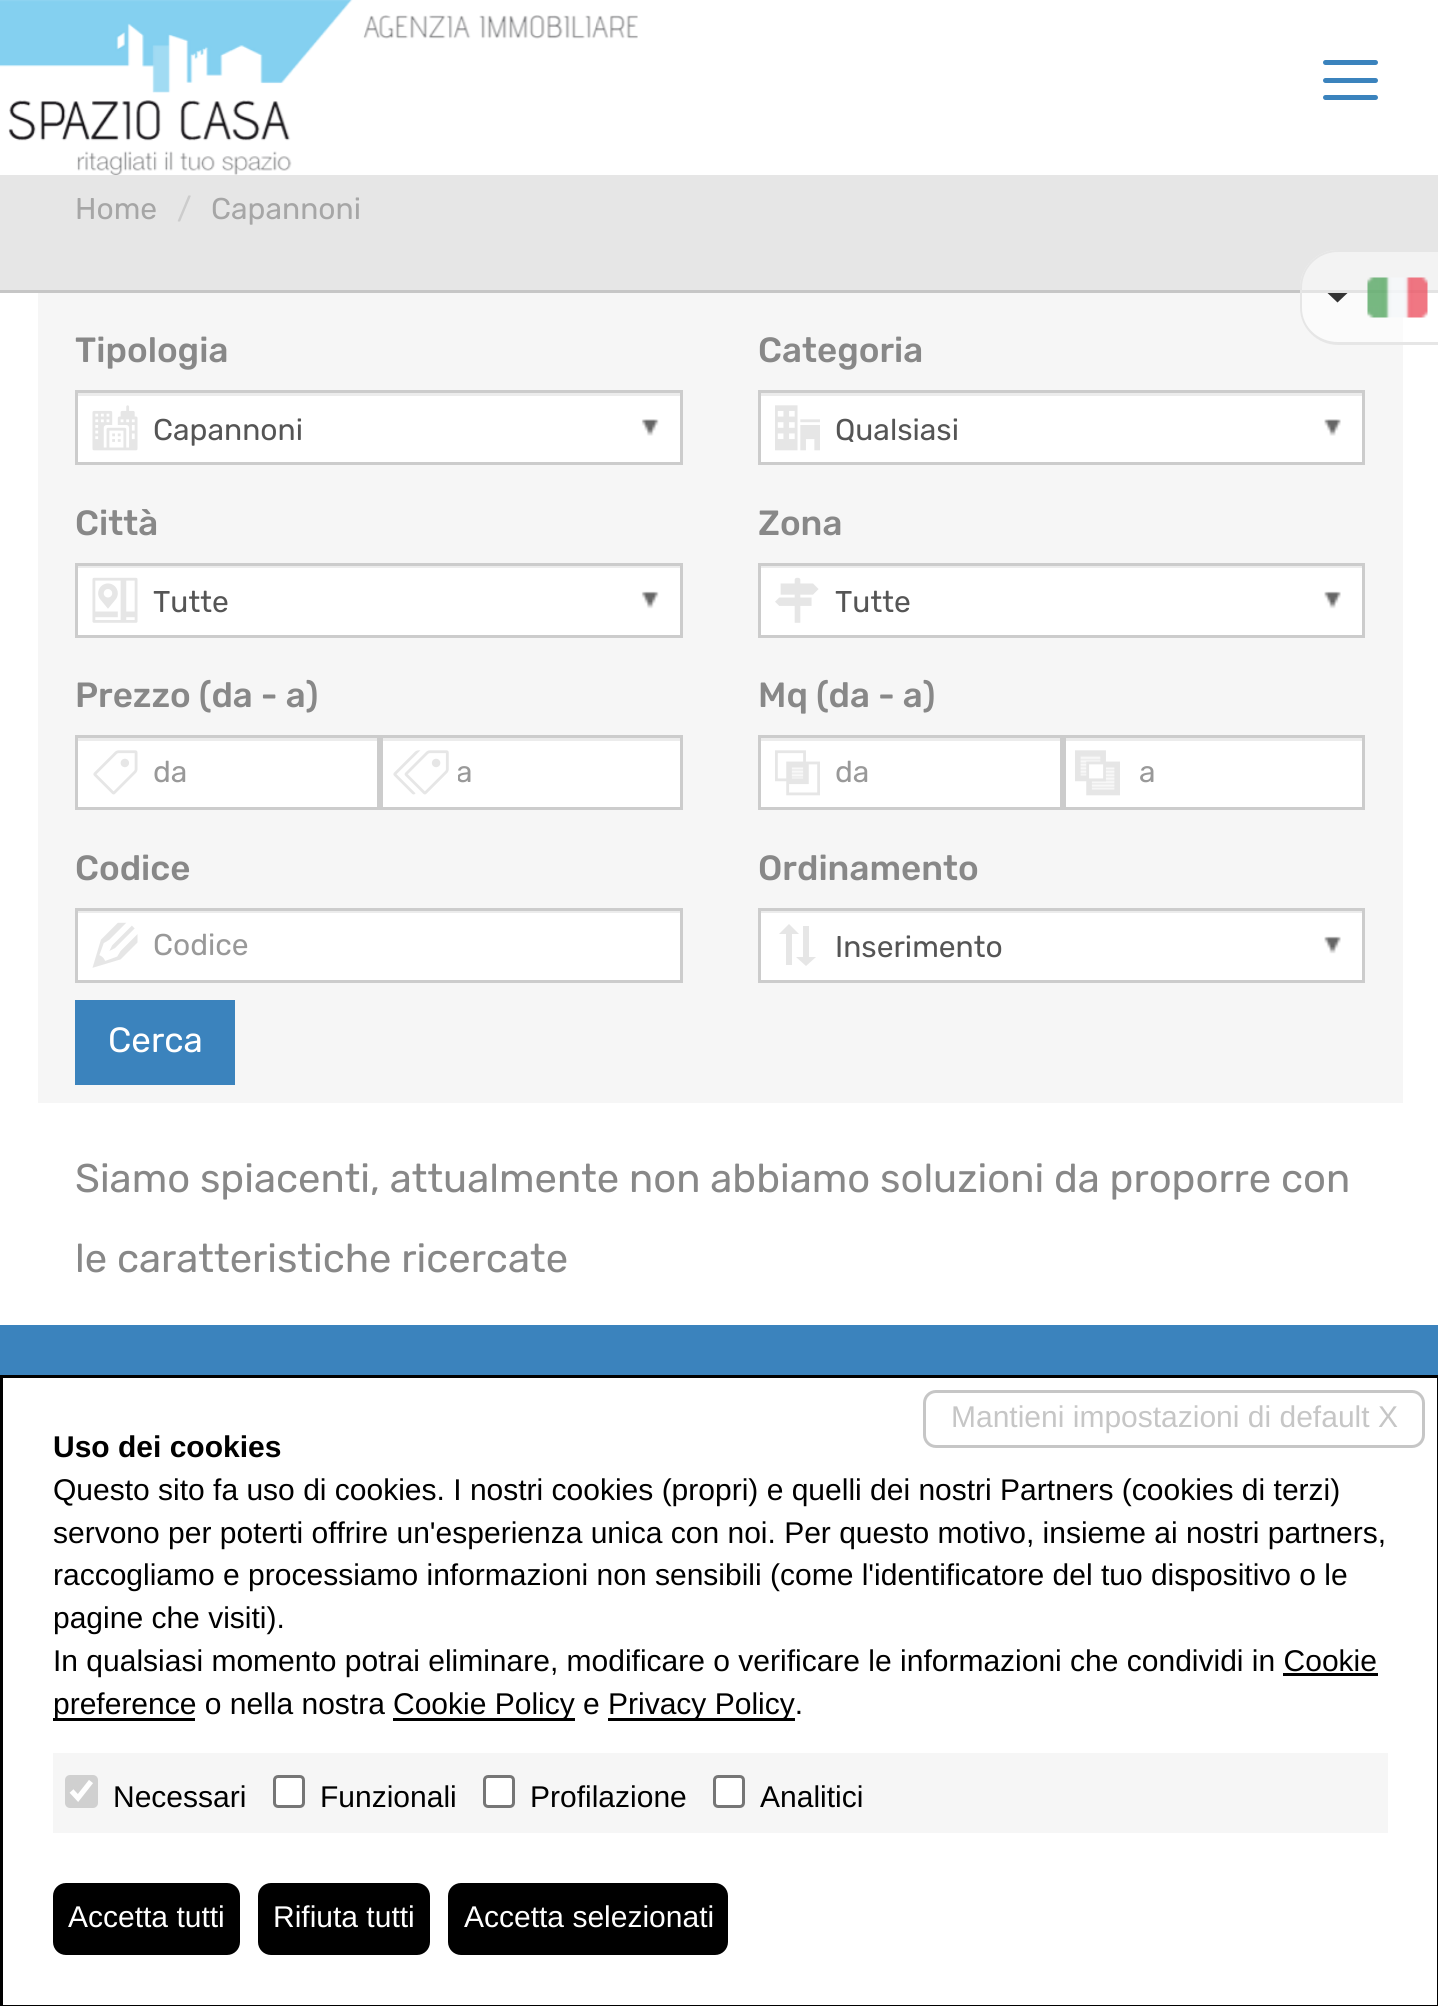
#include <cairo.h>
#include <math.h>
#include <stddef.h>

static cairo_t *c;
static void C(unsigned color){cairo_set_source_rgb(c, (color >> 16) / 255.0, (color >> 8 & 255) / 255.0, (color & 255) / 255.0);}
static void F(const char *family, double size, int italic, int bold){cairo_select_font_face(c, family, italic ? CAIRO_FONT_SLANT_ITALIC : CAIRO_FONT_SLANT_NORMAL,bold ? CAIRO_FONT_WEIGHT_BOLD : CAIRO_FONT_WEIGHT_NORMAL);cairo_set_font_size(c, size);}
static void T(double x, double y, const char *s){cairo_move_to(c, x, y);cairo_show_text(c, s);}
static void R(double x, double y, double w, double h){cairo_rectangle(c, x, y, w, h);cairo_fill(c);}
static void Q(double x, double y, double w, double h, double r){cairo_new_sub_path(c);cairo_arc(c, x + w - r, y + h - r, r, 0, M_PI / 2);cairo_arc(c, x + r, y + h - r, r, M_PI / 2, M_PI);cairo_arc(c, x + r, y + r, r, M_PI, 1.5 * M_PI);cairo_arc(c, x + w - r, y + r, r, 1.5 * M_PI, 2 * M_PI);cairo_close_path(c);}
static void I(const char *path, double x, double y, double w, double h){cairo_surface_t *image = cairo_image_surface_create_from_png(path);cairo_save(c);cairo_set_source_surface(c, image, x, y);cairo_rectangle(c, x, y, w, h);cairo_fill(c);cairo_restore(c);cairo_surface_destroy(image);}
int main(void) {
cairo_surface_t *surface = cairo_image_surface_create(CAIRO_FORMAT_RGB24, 1438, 2006);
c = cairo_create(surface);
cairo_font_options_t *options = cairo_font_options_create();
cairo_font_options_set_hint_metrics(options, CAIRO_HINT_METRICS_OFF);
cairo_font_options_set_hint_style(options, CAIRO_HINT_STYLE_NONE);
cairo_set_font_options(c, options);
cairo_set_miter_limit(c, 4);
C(0xffffff);
cairo_paint(c);
I("1.png",0,0,638,175);
C(0x3b83bd);
Q(1323,60,55,5,2.5);
cairo_fill(c);
Q(1323,78,55,5,2.5);
cairo_fill(c);
Q(1323,95,55,5,2.5);
cairo_fill(c);
C(0xe6e6e6);
R(0,175,1438,115);
C(0xc6c6c6);
R(0,290,1438,3);
F("Rubik",30,0,0);
C(0xa6a6a6);
T(75,219,"Home");
C(0xcccccc);
T(177,219,"/");
C(0xa6a6a6);
T(211,219,"Capannoni");
C(0xf6f6f6);
R(38,293,1365,810);
cairo_set_source_rgba(c,1,1,1,0.5);
cairo_new_path(c);
cairo_move_to(c,1338,250);
cairo_line_to(c,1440,250);
cairo_line_to(c,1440,345);
cairo_line_to(c,1338,345);
cairo_curve_to(c,1317,345,1300,328,1300,307);
cairo_line_to(c,1300,288);
cairo_curve_to(c,1300,267,1317,250,1338,250);
cairo_close_path(c);
cairo_fill(c);
C(0xe6e6e6);
cairo_set_fill_rule(c,CAIRO_FILL_RULE_EVEN_ODD);
cairo_new_path(c);
cairo_move_to(c,1338,250);
cairo_line_to(c,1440,250);
cairo_line_to(c,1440,345);
cairo_line_to(c,1338,345);
cairo_curve_to(c,1317,345,1300,328,1300,308);
cairo_line_to(c,1300,288);
cairo_curve_to(c,1300,267,1317,250,1338,250);
cairo_close_path(c);
cairo_move_to(c,1338,252);
cairo_line_to(c,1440,252);
cairo_line_to(c,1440,342);
cairo_line_to(c,1338,342);
cairo_curve_to(c,1318,342,1302,327,1302,308);
cairo_line_to(c,1302,288);
cairo_curve_to(c,1302,268,1318,252,1338,252);
cairo_close_path(c);
cairo_fill(c);
C(0x333333);
cairo_set_fill_rule(c,CAIRO_FILL_RULE_WINDING);
cairo_new_path(c);
cairo_move_to(c,1327.5,293);
cairo_line_to(c,1337.5,302.5);
cairo_line_to(c,1347.5,293);
cairo_close_path(c);
cairo_fill(c);
I("2.png",1367,277,61,41);
F("Rubik Medium",35,0,0);
C(0x888888);
T(75,362,"Tipologia");
C(0xffffff);
R(78,396,602,66);
I("4.png",641,419,18,17);
C(0xececec);
R(78,393,602,3);
cairo_rectangle(c,76.5,391.5,605,72);
C(0xcccccc);
cairo_set_line_width(c,3);
cairo_stroke(c);
I("3.png",92,405,46,46);
F("Rubik",30,0,0);
C(0x555555);
T(153,440,"Capannoni");
F("Rubik Medium",35,0,0);
C(0x888888);
T(758,362,"Categoria");
C(0xffffff);
R(761,396,601,66);
I("6.png",1324,419,17,17);
C(0xececec);
R(760,393,603,3);
cairo_rectangle(c,759.5,391.5,604,72);
C(0xcccccc);
cairo_stroke(c);
I("5.png",775,405,45,46);
F("Rubik",30,0,0);
C(0x555555);
T(835,440,"Qualsiasi");
F("Rubik Medium",35,0,0);
C(0x888888);
T(75,535,"Città");
C(0xffffff);
R(78,568,602,67);
I("8.png",641,591,18,18);
C(0xececec);
R(78,566,602,2);
cairo_rectangle(c,76.5,564.5,605,72);
C(0xcccccc);
cairo_stroke(c);
I("7.png",92,577,46,46);
F("Rubik",30,0,0);
C(0x555555);
T(153,612,"Tutte");
F("Rubik Medium",35,0,0);
C(0x888888);
T(758,535,"Zona");
C(0xffffff);
R(761,568,601,67);
I("10.png",1324,591,17,18);
C(0xececec);
R(760,566,603,2);
cairo_rectangle(c,759.5,564.5,604,72);
C(0xcccccc);
cairo_stroke(c);
I("9.png",775,577,44,46);
F("Rubik",30,0,0);
C(0x555555);
T(835,612,"Tutte");
F("Rubik Medium",35,0,0);
C(0x888888);
T(75,707,"Prezzo (da - a)");
C(0xffffff);
R(78,741,299,66);
C(0xececec);
R(78,738,300,3);
cairo_rectangle(c,76.5,736.5,302,72);
C(0xcccccc);
cairo_stroke(c);
I("11.png",93,750,45,45);
F("Rubik",30,0,0);
C(0x999999);
T(153,782,"da");
C(0xffffff);
R(383,741,297,66);
C(0xececec);
R(383,738,297,3);
cairo_rectangle(c,381.5,736.5,300,72);
C(0xcccccc);
cairo_stroke(c);
I("12.png",393,750,56,45);
cairo_save(c);
cairo_rectangle(c,458,755,197,35);
cairo_clip(c);
C(0x999999);
T(456,782,"a");
cairo_restore(c);
F("Rubik Medium",35,0,0);
C(0x888888);
T(758,707,"Mq (da - a)");
C(0xffffff);
R(761,741,299,66);
C(0xececec);
R(760,738,300,3);
cairo_rectangle(c,759.5,736.5,302,72);
C(0xcccccc);
cairo_stroke(c);
I("13.png",775,750,45,46);
F("Rubik",30,0,0);
C(0x999999);
T(835,782,"da");
C(0xffffff);
R(1066,741,296,66);
C(0xececec);
R(1065,738,298,3);
cairo_rectangle(c,1064.5,736.5,299,72);
C(0xcccccc);
cairo_stroke(c);
I("14.png",1075,750,45,46);
C(0x999999);
T(1139,782,"a");
F("Rubik Medium",35,0,0);
C(0x888888);
T(75,880,"Codice");
C(0xffffff);
R(78,913,602,67);
C(0xececec);
R(78,911,602,2);
cairo_rectangle(c,76.5,909.5,605,72);
C(0xcccccc);
cairo_stroke(c);
I("15.png",92,922,46,46);
F("Rubik",30,0,0);
C(0x999999);
T(153,955,"Codice");
F("Rubik Medium",35,0,0);
C(0x888888);
T(758,880,"Ordinamento");
C(0xffffff);
R(761,913,601,67);
I("16.png",1324,936,17,18);
C(0xececec);
R(760,911,603,2);
cairo_rectangle(c,759.5,909.5,604,72);
C(0xcccccc);
cairo_stroke(c);
C(0xe6e6e6);
cairo_new_path(c);
cairo_move_to(c,792,934);
cairo_line_to(c,792,965);
cairo_line_to(c,786,965);
cairo_line_to(c,786,934);
cairo_line_to(c,779,934);
cairo_line_to(c,789,924);
cairo_line_to(c,799,934);
cairo_close_path(c);
cairo_move_to(c,803,957);
cairo_line_to(c,803,926);
cairo_line_to(c,809,926);
cairo_line_to(c,809,957);
cairo_line_to(c,816,957);
cairo_line_to(c,806,966);
cairo_line_to(c,796,957);
cairo_close_path(c);
cairo_fill(c);
F("Rubik",30,0,0);
C(0x555555);
T(835,957,"Inserimento");
C(0x3b83bd);
R(75,1000,160,85);
F("Rubik",35,0,0);
C(0xffffff);
T(108,1052,"Cerca");
F("Rubik",40,0,0);
C(0x888888);
T(75,1192,"Siamo spiacenti, attualmente non abbiamo soluzioni da proporre con");
T(75,1272,"le caratteristiche ricercate");
C(0x3b83bd);
R(0,1325,1438,50);
cairo_rectangle(c,1.5,1376.5,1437,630);
C(0x000000);
cairo_stroke(c);
Q(924.5,1391.5,499,55,11.5);
C(0xc6c6c6);
cairo_stroke(c);
F("Liberation Sans",30,0,0);
T(951,1427,"Mantieni impostazioni di default X");
F("Liberation Sans",30,0,1);
C(0x000000);
T(53,1457,"Uso dei cookies");
F("Liberation Sans",30,0,0);
T(53,1500,"Questo sito fa uso di cookies. I nostri cookies (propri) e quelli dei nostri Partners (cookies di terzi)");
T(53,1543,"servono per poterti offrire un'esperienza unica con noi. Per questo motivo, insieme ai nostri partners,");
T(53,1585,"raccogliamo e processiamo informazioni non sensibili (come l'identificatore del tuo dispositivo o le");
T(53,1628,"pagine che visiti).");
T(53,1671,"In qualsiasi momento potrai eliminare, modificare o verificare le informazioni che condividi in Cookie");
R(53,1718,142,3);
T(53,1714,"preference o nella nostra");
R(1283,1673,95,3);
R(393,1718,182,3);
T(393,1714,"Cookie Policy e");
R(608,1718,187,3);
T(608,1714,"Privacy Policy.");
C(0xf6f6f6);
R(53,1753,1335,80);
C(0xd0d0d0);
Q(65,1775,33,33,5);
cairo_fill(c);
cairo_new_path(c);
cairo_move_to(c,71.5,1791);
cairo_line_to(c,78,1798);
cairo_line_to(c,91,1781.5);
C(0xffffff);
cairo_set_line_width(c,5.2);
cairo_stroke(c);
C(0x000000);
T(113,1807,"Necessari");
C(0xffffff);
Q(274.5,1776.5,29,30,3.5);
cairo_fill_preserve(c);
C(0x767676);
cairo_set_line_width(c,3);
cairo_stroke(c);
C(0x000000);
T(320,1807,"Funzionali");
C(0xffffff);
Q(484.5,1776.5,29,30,3.5);
cairo_fill_preserve(c);
C(0x767676);
cairo_stroke(c);
C(0x000000);
T(530,1807,"Profilazione");
C(0xffffff);
Q(714.5,1776.5,29,30,3.5);
cairo_fill_preserve(c);
C(0x767676);
cairo_stroke(c);
C(0x000000);
T(760,1807,"Analitici");
Q(54.5,1884.5,184,69,11.5);
cairo_fill_preserve(c);
cairo_stroke(c);
C(0xffffff);
T(68,1927,"Accetta tutti");
C(0x000000);
Q(259.5,1884.5,169,69,11.5);
cairo_fill_preserve(c);
cairo_stroke(c);
C(0xffffff);
T(273,1927,"Rifiuta tutti");
C(0x000000);
Q(449.5,1884.5,277,69,11.5);
cairo_fill_preserve(c);
cairo_stroke(c);
C(0xffffff);
T(464,1927,"Accetta selezionati");
cairo_surface_write_to_png(surface, "o.png");
cairo_font_options_destroy(options);
cairo_destroy(c);
cairo_surface_destroy(surface);
return 0;
}
